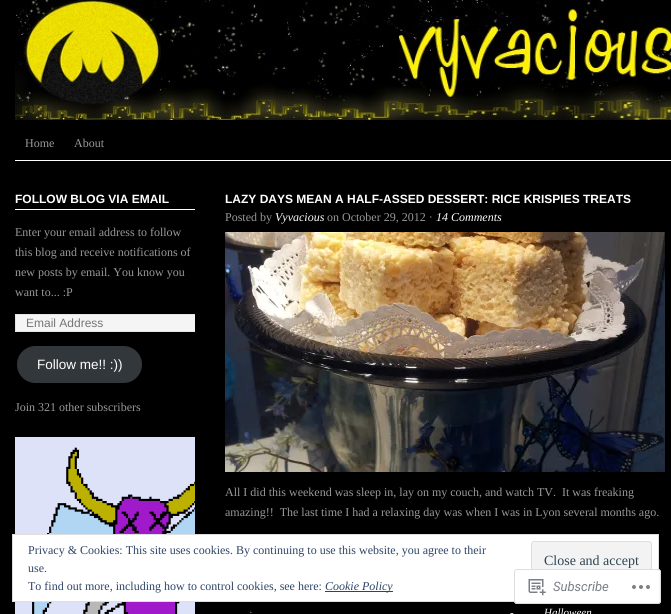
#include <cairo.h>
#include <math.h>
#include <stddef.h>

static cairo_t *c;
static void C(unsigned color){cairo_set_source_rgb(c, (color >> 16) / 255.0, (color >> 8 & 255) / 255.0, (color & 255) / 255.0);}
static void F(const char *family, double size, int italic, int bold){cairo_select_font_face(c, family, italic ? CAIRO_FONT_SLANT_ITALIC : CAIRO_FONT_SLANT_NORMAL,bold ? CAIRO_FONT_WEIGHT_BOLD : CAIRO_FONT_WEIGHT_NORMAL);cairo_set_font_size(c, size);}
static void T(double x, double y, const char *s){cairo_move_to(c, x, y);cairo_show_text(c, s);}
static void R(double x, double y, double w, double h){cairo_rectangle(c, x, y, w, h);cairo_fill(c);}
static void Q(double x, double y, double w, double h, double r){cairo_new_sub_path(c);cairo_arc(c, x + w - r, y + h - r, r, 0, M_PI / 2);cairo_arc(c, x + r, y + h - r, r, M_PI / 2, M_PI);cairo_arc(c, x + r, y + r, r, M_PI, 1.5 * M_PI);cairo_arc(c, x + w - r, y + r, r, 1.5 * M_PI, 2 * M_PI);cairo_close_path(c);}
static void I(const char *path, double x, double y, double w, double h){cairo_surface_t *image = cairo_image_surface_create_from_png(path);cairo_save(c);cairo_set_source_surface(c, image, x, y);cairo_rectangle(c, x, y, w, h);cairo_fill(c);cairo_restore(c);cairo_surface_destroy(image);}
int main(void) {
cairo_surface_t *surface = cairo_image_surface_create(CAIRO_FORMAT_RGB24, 671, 614);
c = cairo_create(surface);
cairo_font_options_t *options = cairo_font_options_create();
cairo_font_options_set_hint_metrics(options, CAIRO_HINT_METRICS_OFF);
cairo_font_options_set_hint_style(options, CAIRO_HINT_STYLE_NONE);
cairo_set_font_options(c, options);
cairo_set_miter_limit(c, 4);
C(0x000000);
cairo_paint(c);
I("1.png",15,0,656,120);
F("Liberation Serif",12,0,0);
C(0x999999);
T(25,147,"Home");
T(74,147,"About");
C(0xffffff);
R(15,160,656,1);
R(15,209,180,1);
F("Liberation Sans",12,0,1);
T(15,203,"FOLLOW BLOG VIA EMAIL");
F("Liberation Serif",12,0,0);
C(0x999999);
T(15,236,"Enter your email address to follow");
T(15,256,"this blog and receive notifications of");
T(15,276,"new posts by email. You know you");
T(15,296,"want to... :P");
C(0xf5f5f5);
R(16,315,179,16);
cairo_save(c);
cairo_rectangle(c,15,191,180,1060);
cairo_clip(c);
cairo_rectangle(c,15.5,314.5,192,17);
C(0xe5e5e5);
cairo_set_line_width(c,1);
cairo_stroke(c);
cairo_restore(c);
F("Liberation Sans",12,0,0);
C(0x757575);
T(26,327,"Email Address");
C(0x32373c);
Q(16,345,127,39,19.5);
cairo_fill_preserve(c);
C(0x000000);
cairo_stroke(c);
F("Liberation Sans",13.5,0,0);
C(0xffffff);
T(37,369,"Follow me!! :))");
F("Liberation Serif",12,0,0);
C(0x999999);
T(15,411,"Join 321 other subscribers");
I("2.png",15,437,180,177);
F("Liberation Sans",12,0,1);
C(0xffffff);
T(225,203,"LAZY DAYS MEAN A HALF-ASSED DESSERT: RICE KRISPIES TREATS");
F("Liberation Serif",12,0,0);
C(0x999999);
T(225,221,"Posted by");
F("Liberation Serif",12,1,0);
C(0xffffff);
T(275,221,"Vyvacious");
F("Liberation Serif",12,0,0);
C(0x999999);
T(327,221,"on October 29, 2012 ·");
F("Liberation Serif",12,1,0);
C(0xffffff);
T(436,221,"14 Comments");
I("3.png",225,232,440,240);
F("Liberation Serif",12,0,0);
C(0x999999);
T(225,496,"All I did this weekend was sleep in, lay on my couch, and watch TV.  It was freaking");
T(225,516,"amazing!!  The last time I had a relaxing day was when I was in Lyon several months ago.");
F("Liberation Serif",11,0,0);
T(249,616,"·");
F("Liberation Serif",11,1,0);
C(0xffffff);
T(510,616,"-");
T(544,616,"Halloween");
cairo_rectangle(c,12.5,534.5,646,67);
cairo_fill_preserve(c);
C(0xdedede);
cairo_set_line_width(c,1);
cairo_stroke(c);
F("Liberation Serif",12,0,0);
C(0x2e4467);
T(28,554,"Privacy & Cookies: This site uses cookies. By continuing to use this website, you agree to their");
C(0xf3f3f3);
Q(531.5,541.5,120,38,2.5);
cairo_fill_preserve(c);
C(0xdedede);
cairo_stroke(c);
F("Liberation Serif",14,0,0);
C(0x2e4453);
T(544,565,"Close and accept");
F("Liberation Serif",12,0,0);
C(0x2e4467);
T(28,572,"use.");
T(28,590,"To find out more, including how to control cookies, see here:");
R(325,591,68,1);
F("Liberation Serif",12,1,0);
T(325,590,"Cookie Policy");
cairo_set_source_rgba(c,1,1,1,0.98);
Q(514,569,147,35,3);
cairo_fill(c);
Q(514.5,569.5,146,34,2.5);
cairo_set_source_rgba(c,0.863,0.863,0.871,0.98);
cairo_stroke(c);
I("4.png",528,579,18,17);
F("Roboto",13,1,0);
C(0x7b7f85);
T(553,591,"Subscribe");
I("5.png",632,585,18,4);
cairo_surface_write_to_png(surface, "o.png");
cairo_font_options_destroy(options);
cairo_destroy(c);
cairo_surface_destroy(surface);
return 0;
}
